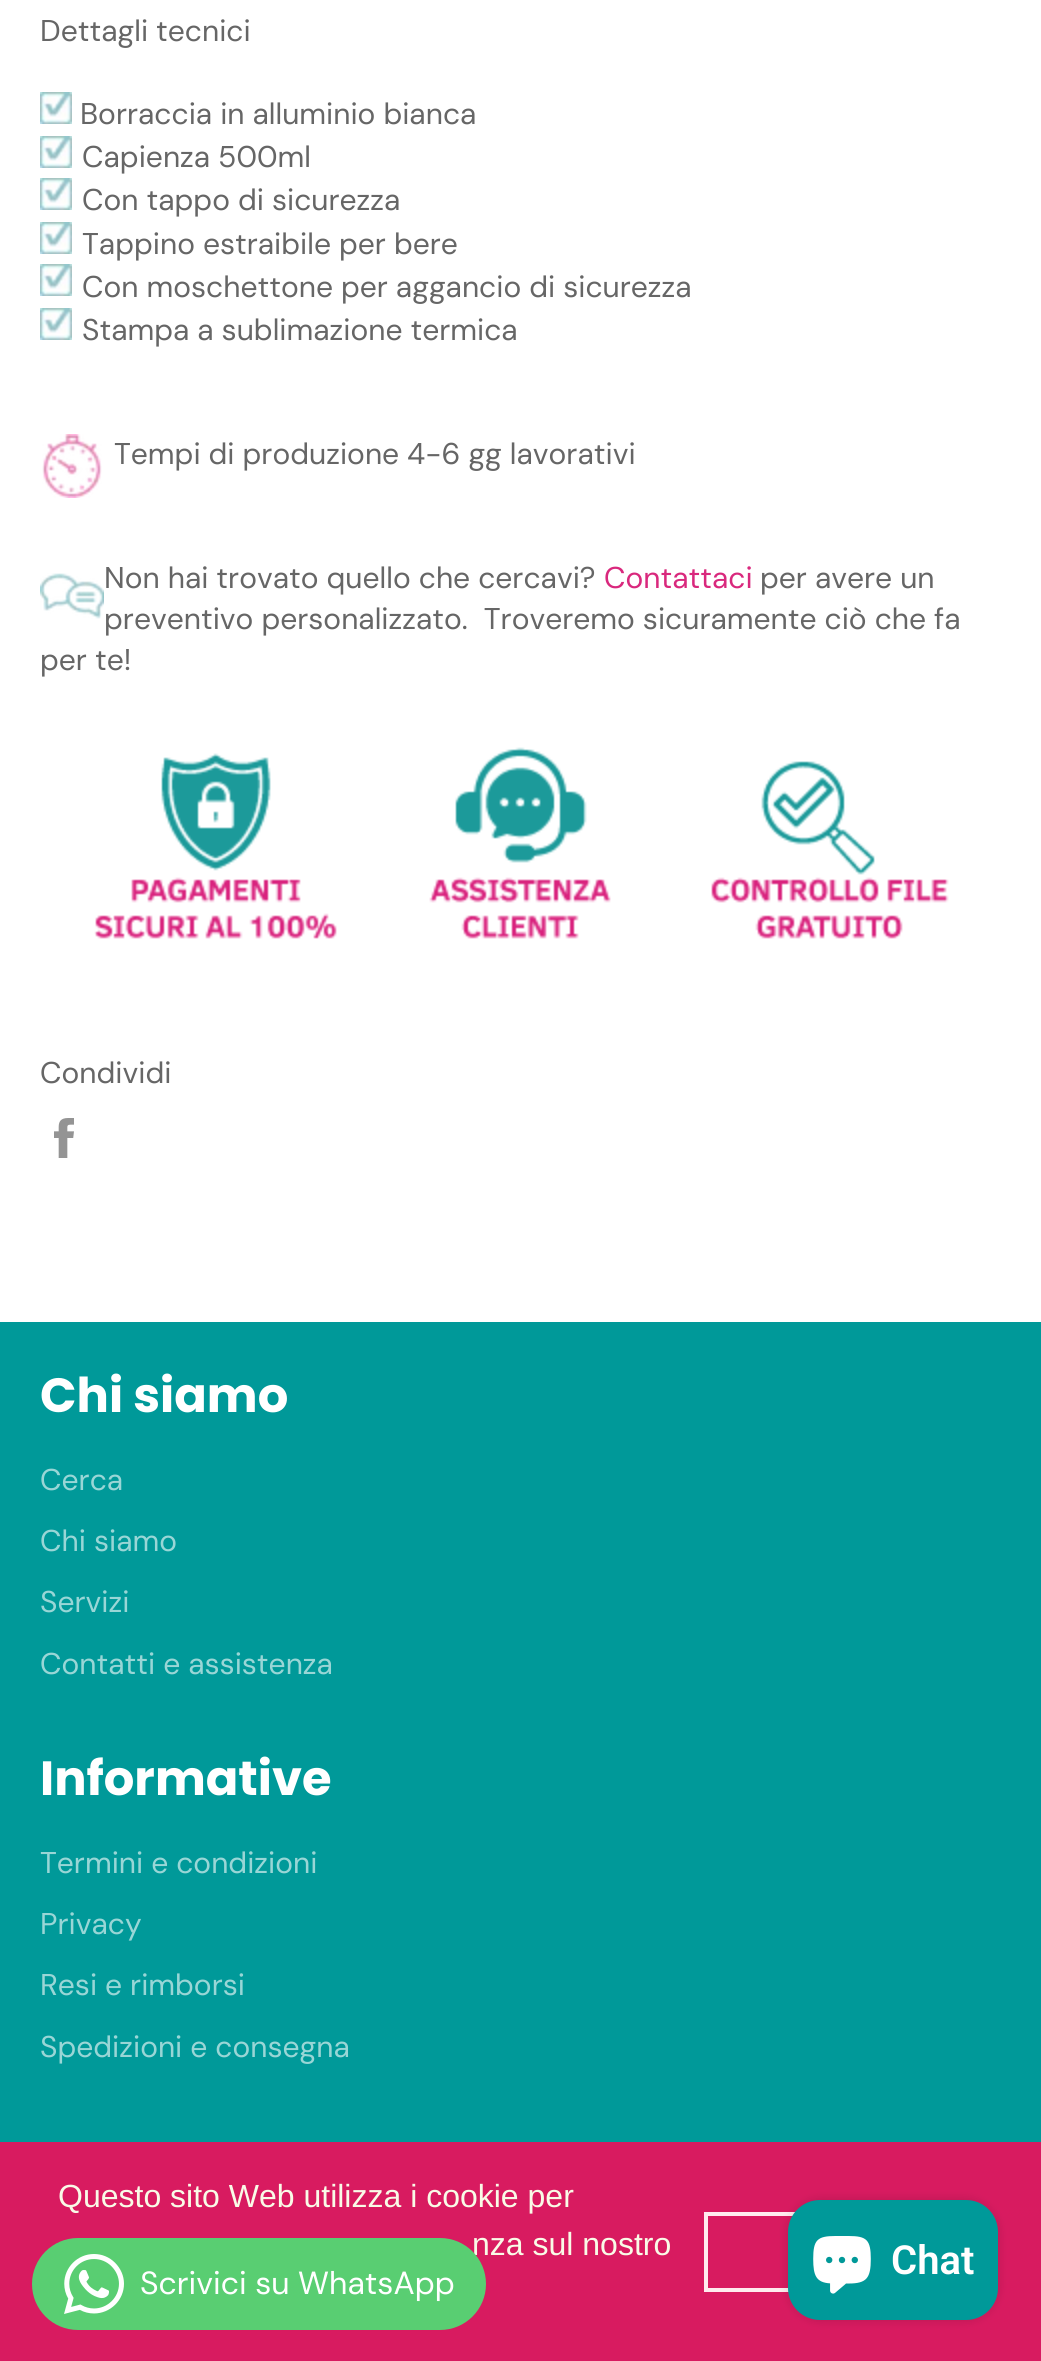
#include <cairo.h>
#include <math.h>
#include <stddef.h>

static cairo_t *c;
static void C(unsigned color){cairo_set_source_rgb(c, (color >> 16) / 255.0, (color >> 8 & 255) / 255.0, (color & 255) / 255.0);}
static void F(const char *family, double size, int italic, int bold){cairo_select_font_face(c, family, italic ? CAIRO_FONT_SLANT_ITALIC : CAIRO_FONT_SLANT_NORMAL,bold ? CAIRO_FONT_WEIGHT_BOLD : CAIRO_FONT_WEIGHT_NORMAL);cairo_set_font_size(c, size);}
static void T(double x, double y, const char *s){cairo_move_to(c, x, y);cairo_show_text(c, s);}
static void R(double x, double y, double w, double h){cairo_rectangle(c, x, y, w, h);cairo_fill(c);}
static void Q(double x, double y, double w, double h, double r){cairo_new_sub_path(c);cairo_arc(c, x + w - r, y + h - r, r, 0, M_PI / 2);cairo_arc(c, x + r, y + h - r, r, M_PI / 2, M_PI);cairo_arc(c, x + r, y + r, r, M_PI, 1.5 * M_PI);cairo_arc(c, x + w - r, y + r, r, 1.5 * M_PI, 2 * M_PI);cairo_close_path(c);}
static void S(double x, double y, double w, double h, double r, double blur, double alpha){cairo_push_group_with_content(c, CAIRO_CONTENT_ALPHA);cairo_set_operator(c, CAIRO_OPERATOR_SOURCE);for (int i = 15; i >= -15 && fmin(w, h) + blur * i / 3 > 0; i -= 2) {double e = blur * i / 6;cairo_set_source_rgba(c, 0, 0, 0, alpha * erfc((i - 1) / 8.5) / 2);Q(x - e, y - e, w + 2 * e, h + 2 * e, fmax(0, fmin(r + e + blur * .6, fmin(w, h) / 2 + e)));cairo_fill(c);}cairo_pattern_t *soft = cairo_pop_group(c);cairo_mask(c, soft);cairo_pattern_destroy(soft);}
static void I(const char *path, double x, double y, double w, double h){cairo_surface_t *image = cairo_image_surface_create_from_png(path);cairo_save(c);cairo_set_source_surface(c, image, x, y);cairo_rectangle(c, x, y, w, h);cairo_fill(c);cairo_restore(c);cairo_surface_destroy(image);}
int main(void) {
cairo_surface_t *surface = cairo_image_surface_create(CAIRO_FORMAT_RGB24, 1041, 2361);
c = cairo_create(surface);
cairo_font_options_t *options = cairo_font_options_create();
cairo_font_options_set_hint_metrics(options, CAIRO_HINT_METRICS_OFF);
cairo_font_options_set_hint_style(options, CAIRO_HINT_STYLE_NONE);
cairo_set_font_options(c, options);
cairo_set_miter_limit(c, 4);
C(0xffffff);
cairo_paint(c);
F("DM Sans",30,0,0);
C(0x666666);
T(40,41,"Dettagli tecnici");
I("1.png",40,92,32,32);
T(80,124,"Borraccia in alluminio bianca");
I("1.png",40,136,32,32);
T(82,167,"Capienza 500ml");
I("1.png",40,178,32,32);
T(82,210,"Con tappo di sicurezza");
I("1.png",40,222,32,32);
T(82,254,"Tappino estraibile per bere");
I("1.png",40,264,32,32);
T(82,297,"Con moschettone per aggancio di sicurezza");
I("1.png",40,308,32,32);
T(82,340,"Stampa a sublimazione termica");
I("2.png",42,434,60,64);
T(114,464,"Tempi di produzione 4-6 gg lavorativi");
T(104,588,"Non hai trovato quello che cercavi?");
C(0xd9287d);
T(604,588,"Contattaci");
C(0x666666);
T(760,588,"per avere un");
T(104,629,"preventivo personalizzato.  Troveremo sicuramente ciò che fa");
T(40,670,"per te!");
I("3.png",40,573,64,46);
I("4.png",94,747,855,192);
T(40,1083,"Condividi");
I("5.png",54,1118,20,40);
C(0x009999);
R(0,1322,1041,820);
F("Poppins",48,0,1);
C(0xffffff);
T(40,1412,"Chi siamo");
F("DM Sans",30,0,0);
C(0x99d6d6);
T(40,1490,"Cerca");
T(40,1551,"Chi siamo");
T(40,1612,"Servizi");
T(40,1674,"Contatti e assistenza");
F("Poppins",48,0,1);
C(0xffffff);
T(40,1795,"Informative");
F("DM Sans",30,0,0);
C(0x99d6d6);
T(40,1873,"Termini e condizioni");
T(40,1934,"Privacy");
T(40,1995,"Resi e rimborsi");
T(40,2057,"Spedizioni e consegna");
C(0xd81b60);
R(0,2142,1041,219);
F("Liberation Sans",32,0,0);
C(0xf9fbe7);
T(58,2207,"Questo sito Web utilizza i cookie per");
T(472,2255,"nza sul nostro");
cairo_rectangle(c,706,2214,276,76);
C(0xffebee);
cairo_set_line_width(c,4);
cairo_stroke(c);
C(0x000000);
S(788,2200,210,120,32,5,.15);
C(0x009999);
Q(788,2200,210,120,32);
cairo_fill(c);
I("6.png",813,2236,58,58);
F("Roboto SemiBold",40,0,0);
C(0xffffff);
T(891,2274,"Chat");
C(0x59ce72);
Q(32,2238,454,92,46);
cairo_fill(c);
I("7.png",64,2254,60,60);
F("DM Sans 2",32,0,0);
C(0xffffff);
T(140,2294,"Scrivici su WhatsApp");
cairo_surface_write_to_png(surface, "o.png");
cairo_font_options_destroy(options);
cairo_destroy(c);
cairo_surface_destroy(surface);
return 0;
}
